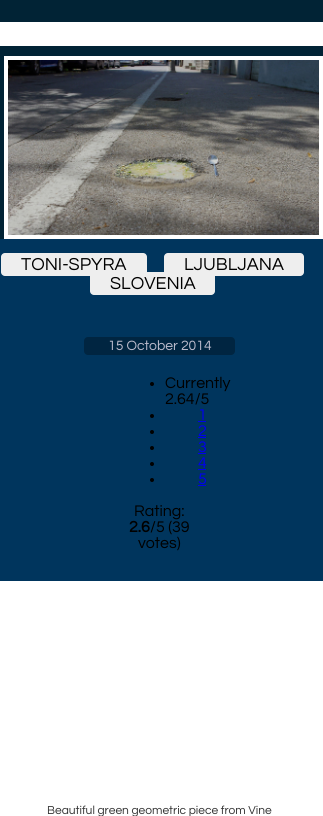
#include <cairo.h>
#include <math.h>
#include <stddef.h>

static cairo_t *c;
static void C(unsigned color){cairo_set_source_rgb(c, (color >> 16) / 255.0, (color >> 8 & 255) / 255.0, (color & 255) / 255.0);}
static void F(const char *family, double size, int italic, int bold){cairo_select_font_face(c, family, italic ? CAIRO_FONT_SLANT_ITALIC : CAIRO_FONT_SLANT_NORMAL,bold ? CAIRO_FONT_WEIGHT_BOLD : CAIRO_FONT_WEIGHT_NORMAL);cairo_set_font_size(c, size);}
static void T(double x, double y, const char *s){cairo_move_to(c, x, y);cairo_show_text(c, s);}
static void R(double x, double y, double w, double h){cairo_rectangle(c, x, y, w, h);cairo_fill(c);}
static void Q(double x, double y, double w, double h, double r){cairo_new_sub_path(c);cairo_arc(c, x + w - r, y + h - r, r, 0, M_PI / 2);cairo_arc(c, x + r, y + h - r, r, M_PI / 2, M_PI);cairo_arc(c, x + r, y + r, r, M_PI, 1.5 * M_PI);cairo_arc(c, x + w - r, y + r, r, 1.5 * M_PI, 2 * M_PI);cairo_close_path(c);}
static void I(const char *path, double x, double y, double w, double h){cairo_surface_t *image = cairo_image_surface_create_from_png(path);cairo_save(c);cairo_set_source_surface(c, image, x, y);cairo_rectangle(c, x, y, w, h);cairo_fill(c);cairo_restore(c);cairo_surface_destroy(image);}
int main(void) {
cairo_surface_t *surface = cairo_image_surface_create(CAIRO_FORMAT_RGB24, 323, 816);
c = cairo_create(surface);
cairo_font_options_t *options = cairo_font_options_create();
cairo_font_options_set_hint_metrics(options, CAIRO_HINT_METRICS_OFF);
cairo_font_options_set_hint_style(options, CAIRO_HINT_STYLE_NONE);
cairo_set_font_options(c, options);
cairo_set_miter_limit(c, 4);
C(0x012335);
cairo_paint(c);
C(0xffffff);
R(0,22,323,24);
cairo_rectangle(c,6,58,315,179);
cairo_set_line_width(c,4);
cairo_stroke(c);
I("1.png",8,60,311,175);
C(0x00355d);
R(0,239,323,342);
C(0xeeeeee);
Q(1,253,146,23,4);
cairo_fill(c);
F("Questrial",18,0,0);
C(0x000000);
T(21,270,"TONI-SPYRA");
C(0xeeeeee);
Q(164,253,140,23,4);
cairo_fill(c);
C(0x000000);
T(184,270,"LJUBLJANA");
C(0xeeeeee);
Q(90,272,125,23,4);
cairo_fill(c);
C(0x000000);
T(110,289,"SLOVENIA");
C(0x002541);
Q(84,337,151,18,4);
cairo_fill(c);
F("Questrial",14,0,0);
C(0xbbbbcc);
T(108,350,"15 October 2014");
C(0x000000);
cairo_new_path(c);
cairo_arc(c,152,384,2,0,2 * M_PI);
cairo_fill(c);
F("Questrial",16,0,0);
T(165,388,"Currently");
T(165,404,"2.64/5");
cairo_new_path(c);
cairo_arc(c,152,416,2,0,2 * M_PI);
cairo_fill(c);
C(0x0000ee);
T(198,420,"1");
R(198,421,8,1);
C(0x000000);
cairo_new_path(c);
cairo_arc(c,152,432,2,0,2 * M_PI);
cairo_fill(c);
C(0x0000ee);
T(198,436,"2");
R(198,437,8,1);
C(0x000000);
cairo_new_path(c);
cairo_arc(c,152,448,2,0,2 * M_PI);
cairo_fill(c);
C(0x0000ee);
T(198,452,"3");
R(198,453,8,1);
C(0x000000);
cairo_new_path(c);
cairo_arc(c,152,464,2,0,2 * M_PI);
cairo_fill(c);
C(0x0000ee);
T(198,468,"4");
R(198,469,8,1);
C(0x000000);
cairo_new_path(c);
cairo_arc(c,152,480,2,0,2 * M_PI);
cairo_fill(c);
C(0x0000ee);
T(198,484,"5");
R(198,485,8,1);
C(0x000000);
T(134,516,"Rating:");
F("Questrial",16,0,1);
T(129,532,"2.6");
F("Questrial",16,0,0);
T(150,532,"/5 (39");
T(138,548,"votes)");
C(0xffffff);
R(0,581,323,235);
F("Questrial",12,0,0);
C(0x333333);
T(47,814,"Beautiful green geometric piece from Vine");
cairo_surface_write_to_png(surface, "o.png");
cairo_font_options_destroy(options);
cairo_destroy(c);
cairo_surface_destroy(surface);
return 0;
}
